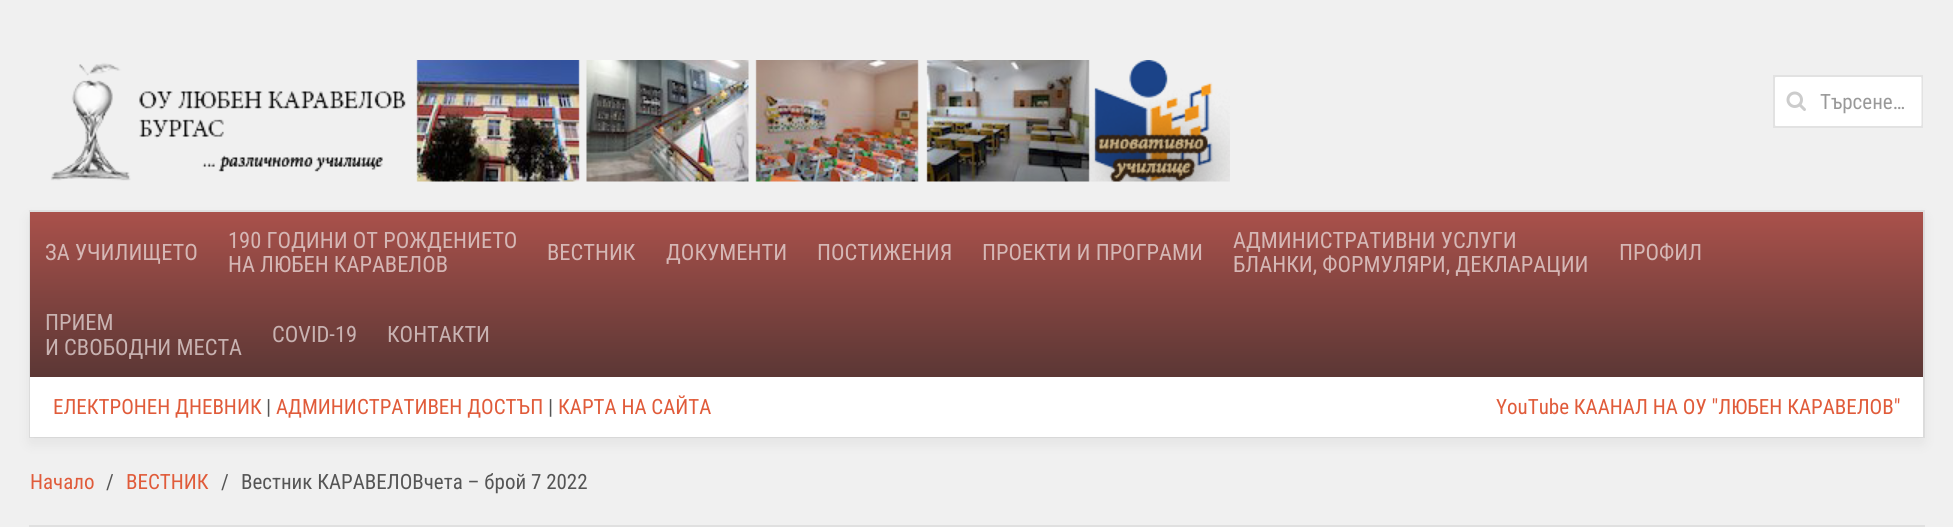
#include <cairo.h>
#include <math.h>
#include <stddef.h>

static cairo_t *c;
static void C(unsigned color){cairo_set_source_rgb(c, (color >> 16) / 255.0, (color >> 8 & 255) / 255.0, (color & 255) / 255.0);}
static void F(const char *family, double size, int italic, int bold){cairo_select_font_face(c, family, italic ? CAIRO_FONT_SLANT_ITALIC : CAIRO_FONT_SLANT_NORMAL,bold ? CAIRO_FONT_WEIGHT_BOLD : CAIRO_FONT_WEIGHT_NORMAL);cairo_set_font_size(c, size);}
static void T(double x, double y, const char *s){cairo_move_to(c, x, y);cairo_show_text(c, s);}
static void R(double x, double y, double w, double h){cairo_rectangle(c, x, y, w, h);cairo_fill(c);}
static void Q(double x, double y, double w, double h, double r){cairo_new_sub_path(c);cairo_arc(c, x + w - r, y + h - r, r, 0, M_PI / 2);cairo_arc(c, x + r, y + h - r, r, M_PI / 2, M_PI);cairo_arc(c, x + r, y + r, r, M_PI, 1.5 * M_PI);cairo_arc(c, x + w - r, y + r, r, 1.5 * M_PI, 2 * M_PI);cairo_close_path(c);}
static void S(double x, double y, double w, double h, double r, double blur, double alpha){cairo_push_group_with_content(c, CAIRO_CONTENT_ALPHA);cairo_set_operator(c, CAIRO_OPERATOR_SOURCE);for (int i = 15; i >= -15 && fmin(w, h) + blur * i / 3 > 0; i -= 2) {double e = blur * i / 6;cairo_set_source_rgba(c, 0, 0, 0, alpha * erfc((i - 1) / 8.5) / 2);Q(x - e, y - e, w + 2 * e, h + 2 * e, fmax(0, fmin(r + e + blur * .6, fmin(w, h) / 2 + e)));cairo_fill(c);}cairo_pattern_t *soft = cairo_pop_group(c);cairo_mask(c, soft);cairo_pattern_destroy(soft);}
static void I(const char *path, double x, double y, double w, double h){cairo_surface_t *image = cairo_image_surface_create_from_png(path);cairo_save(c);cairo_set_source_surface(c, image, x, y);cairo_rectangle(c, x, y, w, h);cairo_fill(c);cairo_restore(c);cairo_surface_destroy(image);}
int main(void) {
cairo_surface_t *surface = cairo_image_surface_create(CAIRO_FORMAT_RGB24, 1953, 527);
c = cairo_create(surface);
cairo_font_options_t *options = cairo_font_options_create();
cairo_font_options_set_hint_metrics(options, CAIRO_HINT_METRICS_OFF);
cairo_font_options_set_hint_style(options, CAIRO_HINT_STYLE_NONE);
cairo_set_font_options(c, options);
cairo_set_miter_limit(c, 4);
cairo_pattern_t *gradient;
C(0xf0f0f0);
cairo_paint(c);
I("1.png",50,60,1180,122);
C(0xffffff);
Q(1775,77,147,49,1.5);
cairo_fill(c);
cairo_rectangle(c,1774,76,148,51);
cairo_set_source_rgba(c,0,0,0,0.06);
cairo_stroke(c);
I("2.png",1786,91,20,20);
F("Roboto Condensed",21,0,0);
C(0x999999);
T(1820,109,"Търсене…");
C(0x000000);
S(30,218,1893,225,0,7.5,.06);
cairo_rectangle(c,30,211,1894,226);
cairo_set_source_rgba(c,0,0,0,0.06);
cairo_stroke(c);
C(0xffffff);
R(30,377,1893,60);
gradient = cairo_pattern_create_linear(977,211,977,377);
cairo_pattern_add_color_stop_rgba(gradient,0,0.667,0.318,0.294,1);
cairo_pattern_add_color_stop_rgba(gradient,1,0.357,0.216,0.208,1);
cairo_set_source(c,gradient);
cairo_pattern_destroy(gradient);
R(30,212,1893,165);
F("Roboto Condensed",22.5,0,0);
C(0xd5b7b5);
T(45,260,"ЗА УЧИЛИЩЕТО");
T(228,248,"190 ГОДИНИ ОТ РОЖДЕНИЕТО");
T(228,272,"НА ЛЮБЕН КАРАВЕЛОВ");
T(547,260,"ВЕСТНИК");
T(666,260,"ДОКУМЕНТИ");
T(817,260,"ПОСТИЖЕНИЯ");
T(982,260,"ПРОЕКТИ И ПРОГРАМИ");
T(1233,248,"АДМИНИСТРАТИВНИ УСЛУГИ");
T(1233,272,"БЛАНКИ, ФОРМУЛЯРИ, ДЕКЛАРАЦИИ");
T(1619,260,"ПРОФИЛ");
C(0xc8b2b1);
T(45,330,"ПРИЕМ");
T(45,355,"И СВОБОДНИ МЕСТА");
T(272,342,"COVID-19");
T(387,342,"КОНТАКТИ");
F("Roboto Condensed",21,0,0);
C(0xe05b3a);
T(53,414,"ЕЛЕКТРОНЕН ДНЕВНИК");
C(0x555555);
T(266,414,"|");
C(0xe05b3a);
T(276,414,"АДМИНИСТРАТИВЕН ДОСТЪП");
C(0x555555);
T(548,414,"|");
C(0xe05b3a);
T(558,414,"КАРТА НА САЙТА");
T(1496,414,"YouTube КААНАЛ НА ОУ \"ЛЮБЕН КАРАВЕЛОВ\"");
T(30,489,"Начало");
C(0x555555);
T(106,489,"/");
C(0xe05b3a);
T(126,489,"ВЕСТНИК");
C(0x555555);
T(221,489,"/");
T(241,489,"Вестник КАРАВЕЛОВчета – брой 7 2022");
cairo_rectangle(c,30,526,1894,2);
C(0xe0e0e0);
cairo_stroke(c);
cairo_surface_write_to_png(surface, "o.png");
cairo_font_options_destroy(options);
cairo_destroy(c);
cairo_surface_destroy(surface);
return 0;
}
